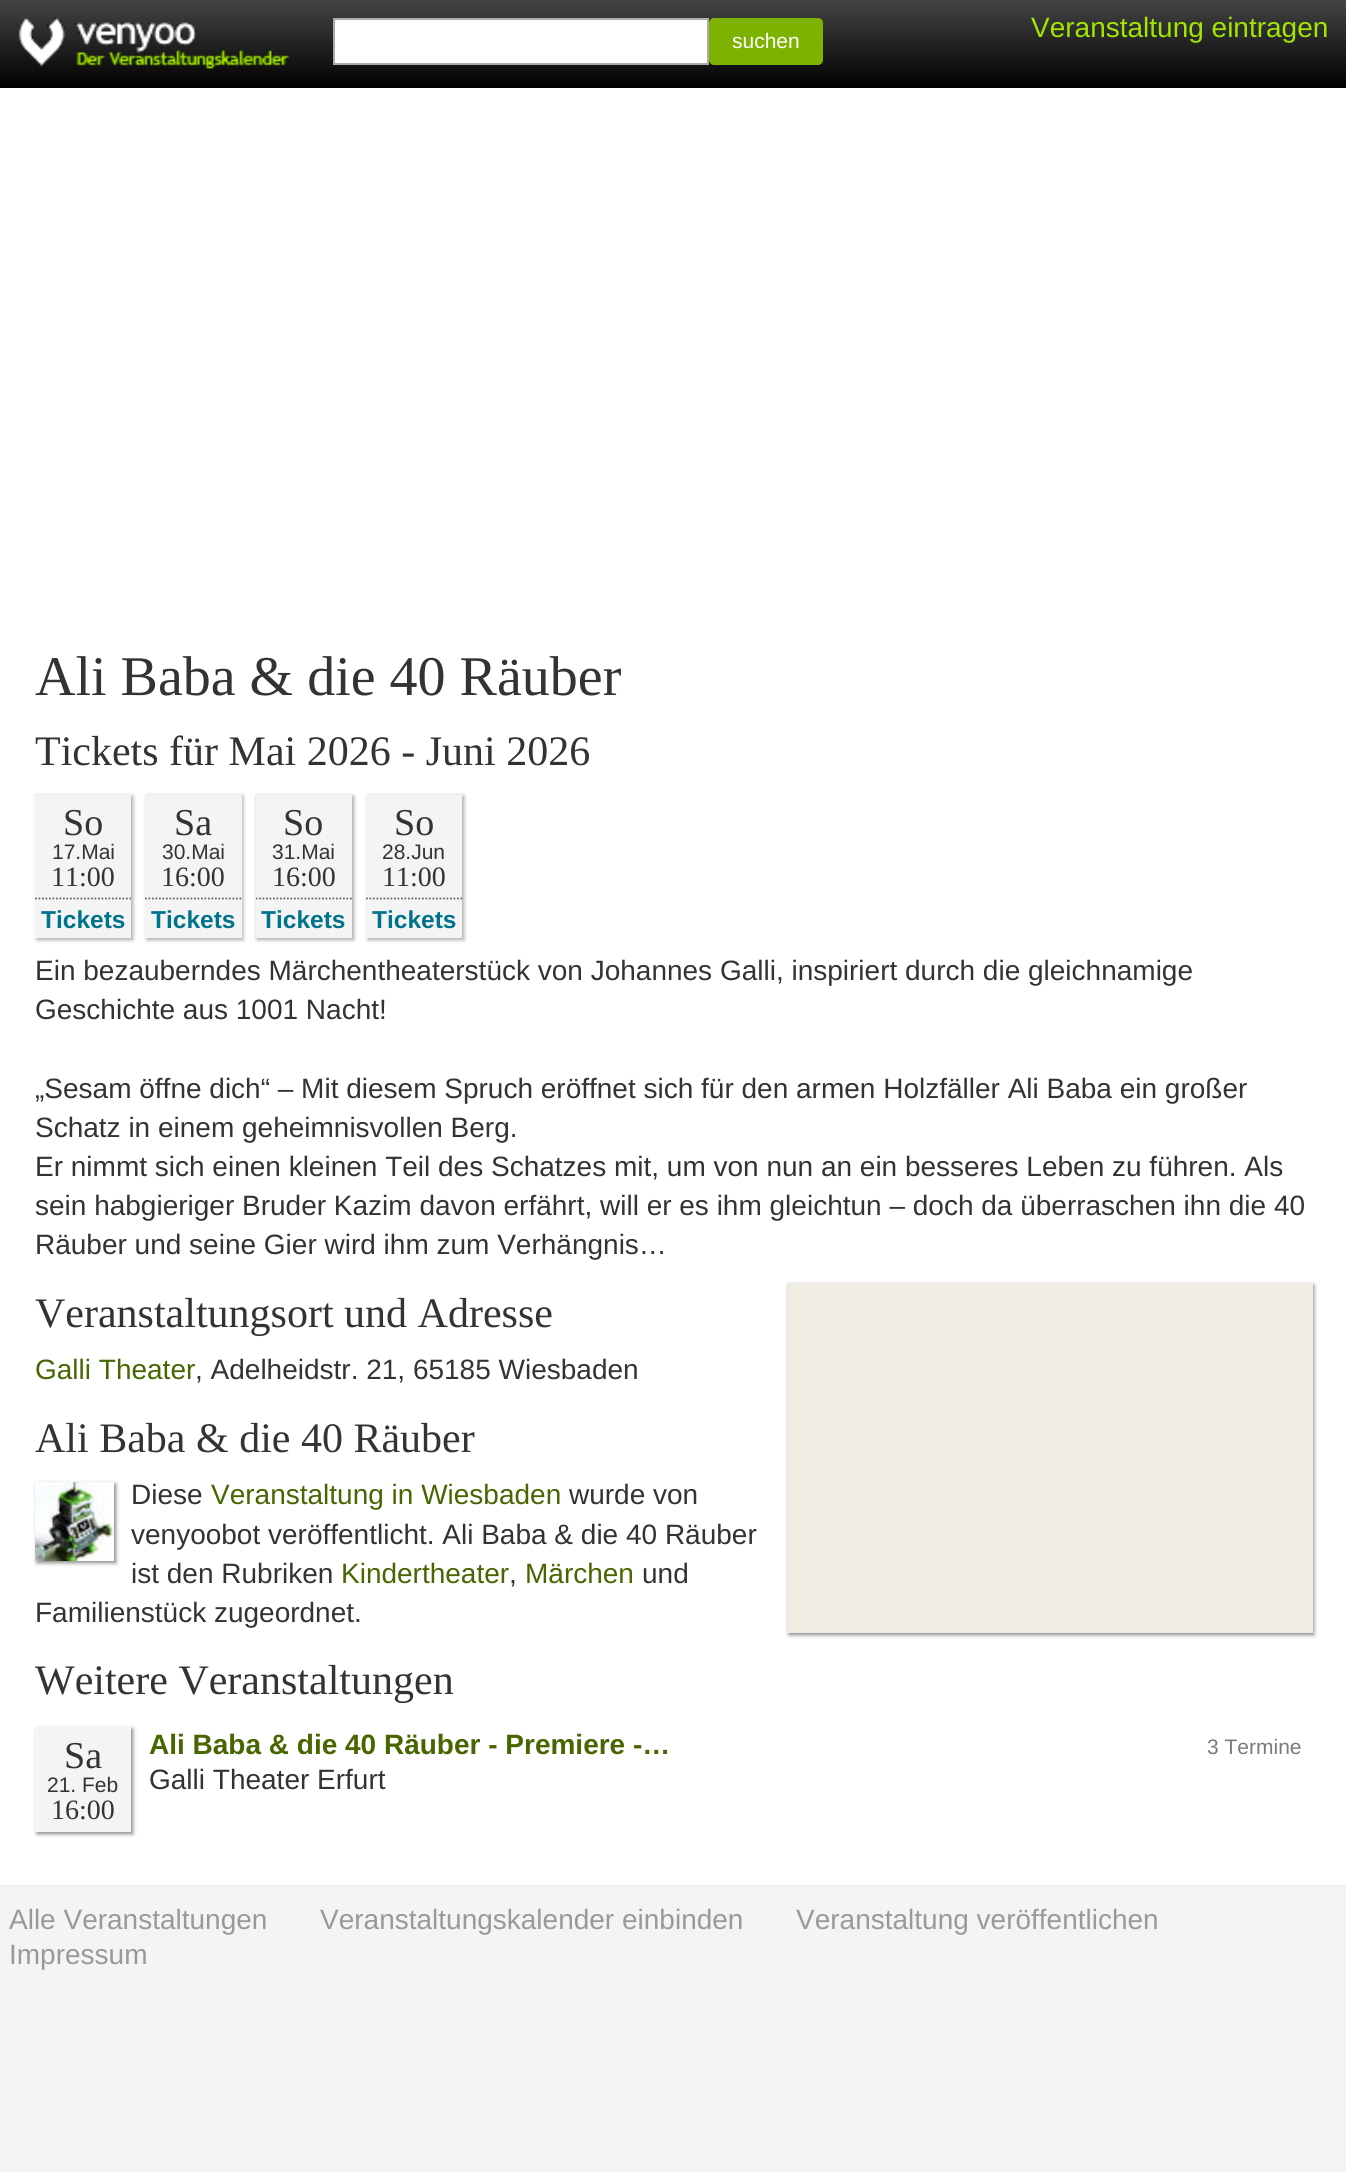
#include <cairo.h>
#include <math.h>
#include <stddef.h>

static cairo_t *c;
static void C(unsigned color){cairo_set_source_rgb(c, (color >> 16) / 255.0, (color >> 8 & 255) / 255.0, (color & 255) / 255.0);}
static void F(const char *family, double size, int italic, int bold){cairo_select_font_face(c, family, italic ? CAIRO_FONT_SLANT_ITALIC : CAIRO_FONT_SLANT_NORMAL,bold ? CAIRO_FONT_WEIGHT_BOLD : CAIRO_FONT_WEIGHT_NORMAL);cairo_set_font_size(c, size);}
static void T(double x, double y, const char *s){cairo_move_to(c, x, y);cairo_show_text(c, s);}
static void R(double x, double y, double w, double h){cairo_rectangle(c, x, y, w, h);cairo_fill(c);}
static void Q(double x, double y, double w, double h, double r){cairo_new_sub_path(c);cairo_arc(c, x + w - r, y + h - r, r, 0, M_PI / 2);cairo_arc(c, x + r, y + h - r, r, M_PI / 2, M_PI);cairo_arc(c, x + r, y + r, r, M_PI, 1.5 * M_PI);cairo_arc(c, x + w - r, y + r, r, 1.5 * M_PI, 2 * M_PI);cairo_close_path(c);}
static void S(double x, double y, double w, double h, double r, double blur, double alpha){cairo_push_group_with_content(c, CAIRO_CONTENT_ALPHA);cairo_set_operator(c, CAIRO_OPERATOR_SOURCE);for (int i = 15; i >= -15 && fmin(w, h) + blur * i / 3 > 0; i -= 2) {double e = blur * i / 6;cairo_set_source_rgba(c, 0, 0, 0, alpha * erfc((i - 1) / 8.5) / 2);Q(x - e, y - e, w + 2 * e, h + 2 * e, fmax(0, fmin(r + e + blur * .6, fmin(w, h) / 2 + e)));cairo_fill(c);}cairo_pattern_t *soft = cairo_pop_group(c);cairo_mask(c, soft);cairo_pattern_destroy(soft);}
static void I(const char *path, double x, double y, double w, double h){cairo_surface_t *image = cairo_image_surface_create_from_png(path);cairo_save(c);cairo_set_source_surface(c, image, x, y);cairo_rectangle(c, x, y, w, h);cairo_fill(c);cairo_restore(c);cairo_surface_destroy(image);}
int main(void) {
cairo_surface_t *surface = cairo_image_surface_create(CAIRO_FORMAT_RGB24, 1346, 2172);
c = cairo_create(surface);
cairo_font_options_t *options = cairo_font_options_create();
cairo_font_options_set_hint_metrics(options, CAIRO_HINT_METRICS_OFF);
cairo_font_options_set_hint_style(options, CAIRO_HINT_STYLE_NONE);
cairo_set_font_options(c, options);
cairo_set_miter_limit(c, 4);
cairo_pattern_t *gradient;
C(0xf4f4f4);
cairo_paint(c);
C(0xffffff);
R(0,88,1346,1797);
C(0xeeeeee);
R(0,1885,1346,2);
gradient = cairo_pattern_create_linear(674,0,674,88);
cairo_pattern_add_color_stop_rgba(gradient,0,0.267,0.267,0.267,1);
cairo_pattern_add_color_stop_rgba(gradient,1,0,0,0,1);
cairo_set_source(c,gradient);
cairo_pattern_destroy(gradient);
R(0,0,1346,88);
I("1.png",18,17,272,52);
C(0xffffff);
cairo_rectangle(c,334,19,374,45);
cairo_fill_preserve(c);
C(0xaaaaaa);
cairo_stroke(c);
C(0x7db300);
Q(710,19,112,45,4);
cairo_fill_preserve(c);
cairo_stroke(c);
F("Liberation Sans",21,0,0);
C(0xffffff);
T(732,48,"suchen");
F("Liberation Sans",28,0,0);
C(0xa1e500);
T(1031,37,"Veranstaltung eintragen");
F("Liberation Serif",56,0,0);
C(0x333333);
T(35,695,"Ali Baba & die 40 Räuber");
F("Liberation Serif",42,0,0);
T(35,765,"Tickets für Mai 2026 - Juni 2026");
C(0xaaaaaa);
S(37,796,96,144,0,2,1);
C(0xf4f4f4);
R(35,795,96,143);
F("Liberation Serif",38,0,0);
C(0x333333);
T(63,835,"So");
F("Liberation Sans",21,0,0);
T(52,859,"17.Mai");
F("Liberation Serif",28,0,0);
T(51,886,"11:00");
cairo_new_path(c);
cairo_move_to(c,35,898.5);
cairo_line_to(c,131,898.5);
C(0x666666);
cairo_set_line_width(c,1.8);
cairo_set_dash(c,(double[]){1.75,1.75},2,0);
cairo_stroke(c);
F("Liberation Sans",24.5,0,1);
C(0x00738c);
T(41,928,"Tickets");
C(0xaaaaaa);
S(147,796,96,144,0,2,1);
C(0xf4f4f4);
R(145,795,97,143);
F("Liberation Serif",38,0,0);
C(0x333333);
T(174,835,"Sa");
F("Liberation Sans",21,0,0);
T(162,859,"30.Mai");
F("Liberation Serif",28,0,0);
T(161,886,"16:00");
cairo_new_path(c);
cairo_move_to(c,145,898.5);
cairo_line_to(c,241.5,898.5);
C(0x666666);
cairo_stroke(c);
F("Liberation Sans",24.5,0,1);
C(0x00738c);
T(151,928,"Tickets");
C(0xaaaaaa);
S(257,796,97,144,0,2,1);
C(0xf4f4f4);
R(256,795,96,143);
F("Liberation Serif",38,0,0);
C(0x333333);
T(283,835,"So");
F("Liberation Sans",21,0,0);
T(272,859,"31.Mai");
F("Liberation Serif",28,0,0);
T(272,886,"16:00");
cairo_save(c);
cairo_rectangle(c,256,795,96,143);
cairo_clip(c);
cairo_new_path(c);
cairo_move_to(c,255.5,898.5);
cairo_line_to(c,352,898.5);
C(0x666666);
cairo_stroke(c);
cairo_restore(c);
F("Liberation Sans",24.5,0,1);
C(0x00738c);
T(261,928,"Tickets");
C(0xaaaaaa);
S(368,796,96,144,0,2,1);
C(0xf4f4f4);
R(366,795,96,143);
F("Liberation Serif",38,0,0);
C(0x333333);
T(394,835,"So");
F("Liberation Sans",21,0,0);
T(382,859,"28.Jun");
F("Liberation Serif",28,0,0);
T(382,886,"11:00");
cairo_new_path(c);
cairo_move_to(c,366,898.5);
cairo_line_to(c,462,898.5);
C(0x666666);
cairo_stroke(c);
F("Liberation Sans",24.5,0,1);
C(0x00738c);
T(372,928,"Tickets");
F("Liberation Sans",28,0,0);
C(0x333333);
T(35,980,"Ein bezauberndes Märchentheaterstück von Johannes Galli, inspiriert durch die gleichnamige");
T(35,1019,"Geschichte aus 1001 Nacht!");
T(35,1098,"„Sesam öffne dich“ – Mit diesem Spruch eröffnet sich für den armen Holzfäller Ali Baba ein großer");
T(35,1137,"Schatz in einem geheimnisvollen Berg.");
T(35,1176,"Er nimmt sich einen kleinen Teil des Schatzes mit, um von nun an ein besseres Leben zu führen. Als");
T(35,1215,"sein habgieriger Bruder Kazim davon erfährt, will er es ihm gleichtun – doch da überraschen ihn die 40");
T(35,1254,"Räuber und seine Gier wird ihm zum Verhängnis…");
F("Liberation Serif",42,0,0);
T(35,1327,"Veranstaltungsort und Adresse");
C(0x888888);
S(789,1285,525,350,0,2,1);
C(0xf0ede5);
R(788,1283,525,350);
F("Liberation Sans",28,0,0);
C(0x476600);
T(35,1379,"Galli Theater");
C(0x333333);
T(195,1379,", Adelheidstr. 21, 65185 Wiesbaden");
F("Liberation Serif",42,0,0);
T(35,1452,"Ali Baba & die 40 Räuber");
C(0x888888);
S(37,1484,79,79,0,2,1);
C(0xf4f4f4);
R(35,1482,79,79);
I("2.png",35,1482,79,79);
F("Liberation Sans",28,0,0);
C(0x333333);
T(131,1504,"Diese");
C(0x476600);
T(211,1504,"Veranstaltung in Wiesbaden");
C(0x333333);
T(569,1504,"wurde von");
T(131,1544,"venyoobot veröffentlicht. Ali Baba & die 40 Räuber");
T(131,1583,"ist den Rubriken");
C(0x476600);
T(341,1583,"Kindertheater");
C(0x333333);
T(509,1583,",");
C(0x476600);
T(525,1583,"Märchen");
C(0x333333);
T(642,1583,"und");
T(35,1622,"Familienstück zugeordnet.");
F("Liberation Serif",42,0,0);
T(35,1694,"Weitere Veranstaltungen");
C(0x888888);
S(37,1729,96,105,0,2,1);
C(0xf4f4f4);
R(35,1727,96,105);
F("Liberation Serif",38,0,0);
C(0x333333);
T(64,1768,"Sa");
F("Liberation Sans",21,0,0);
T(47,1792,"21. Feb");
F("Liberation Serif",28,0,0);
T(51,1819,"16:00");
F("Liberation Sans",28,0,1);
C(0x476600);
T(149,1754,"Ali Baba & die 40 Räuber - Premiere -…");
F("Liberation Sans",21,0,0);
C(0x7a7a7a);
T(1207,1754,"3 Termine");
F("Liberation Sans",28,0,0);
C(0x333333);
T(149,1789,"Galli Theater Erfurt");
C(0x999999);
T(9,1929,"Alle Veranstaltungen");
T(320,1929,"Veranstaltungskalender einbinden");
T(796,1929,"Veranstaltung veröffentlichen");
T(9,1964,"Impressum");
cairo_surface_write_to_png(surface, "o.png");
cairo_font_options_destroy(options);
cairo_destroy(c);
cairo_surface_destroy(surface);
return 0;
}
